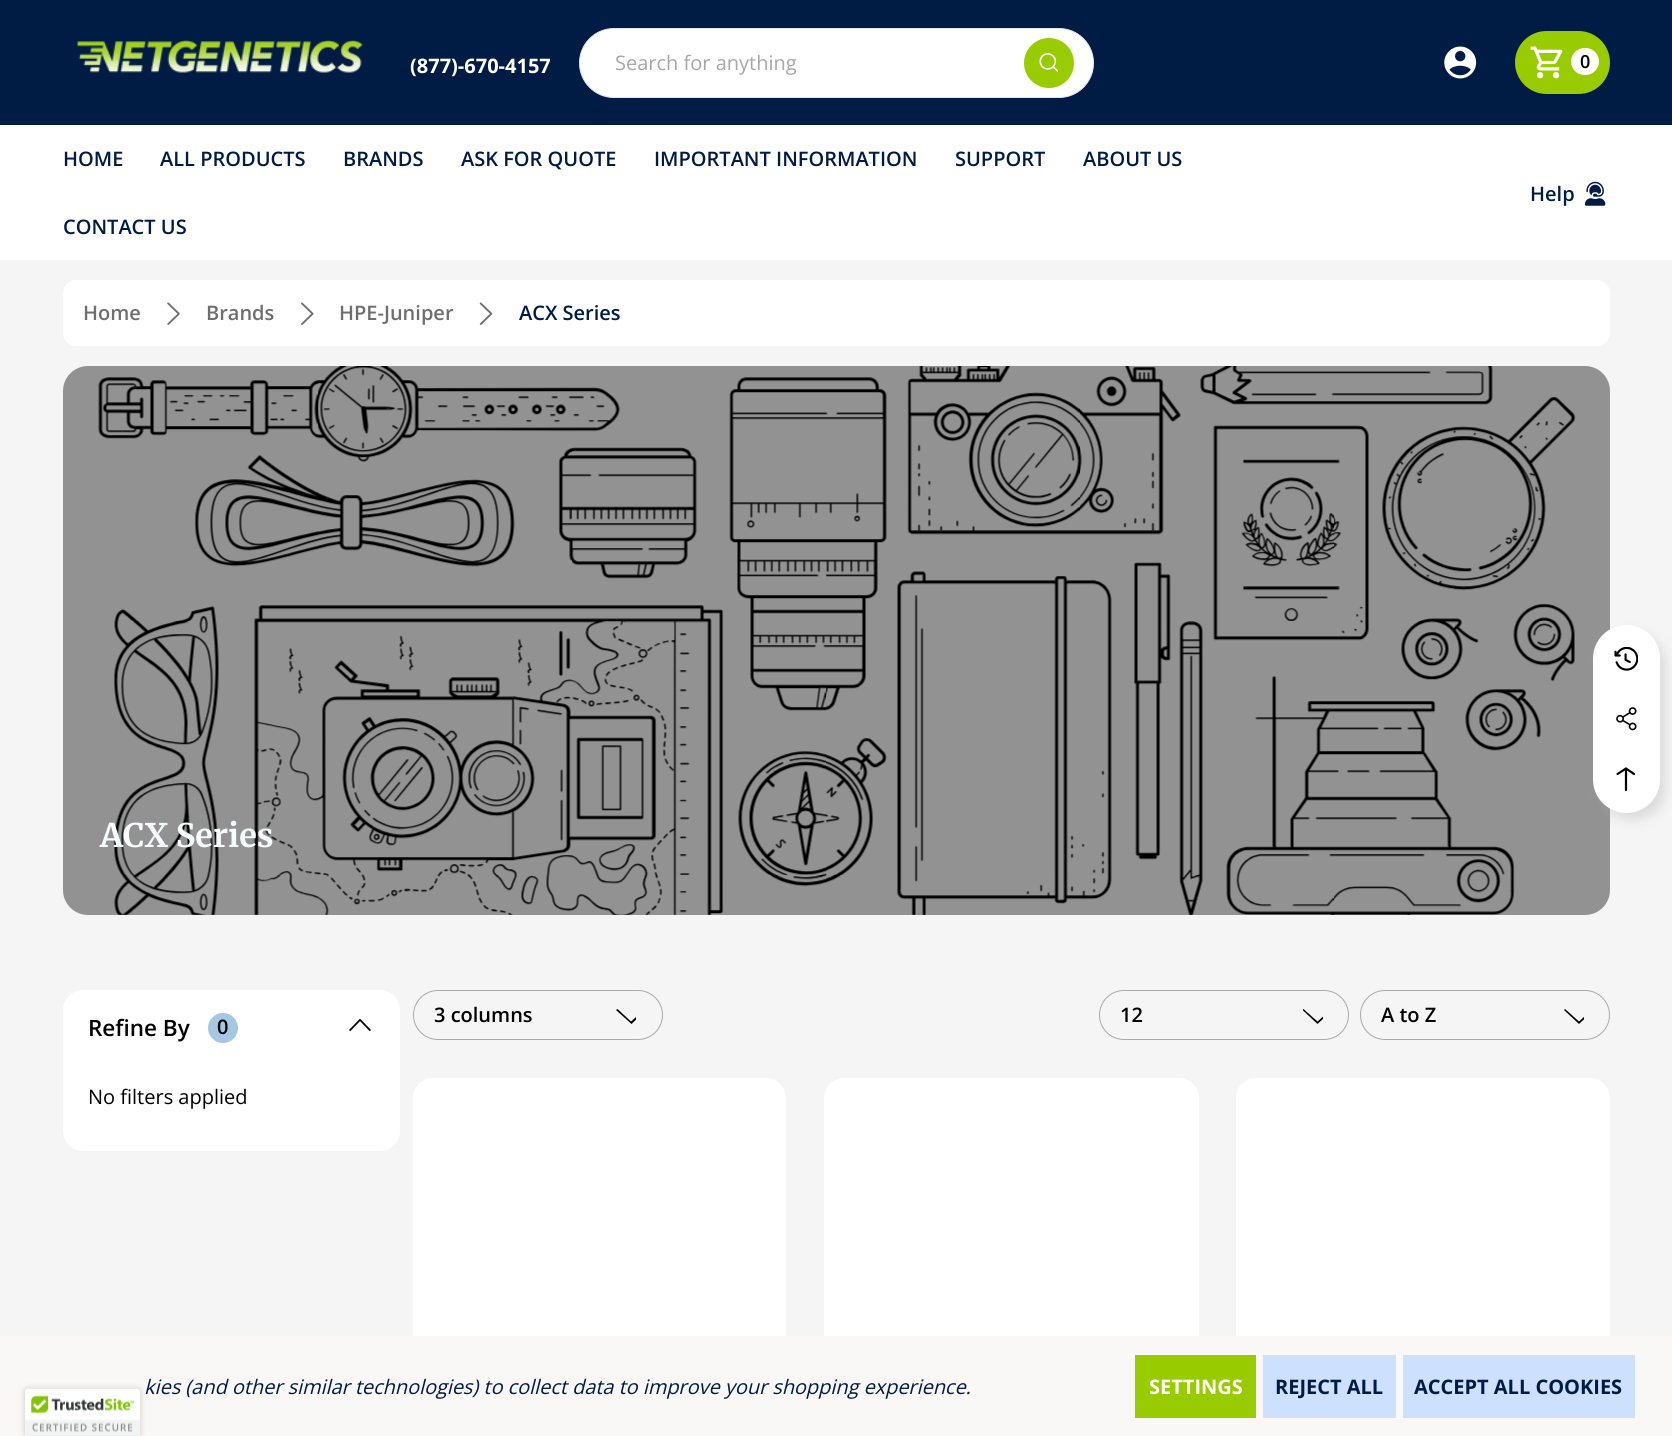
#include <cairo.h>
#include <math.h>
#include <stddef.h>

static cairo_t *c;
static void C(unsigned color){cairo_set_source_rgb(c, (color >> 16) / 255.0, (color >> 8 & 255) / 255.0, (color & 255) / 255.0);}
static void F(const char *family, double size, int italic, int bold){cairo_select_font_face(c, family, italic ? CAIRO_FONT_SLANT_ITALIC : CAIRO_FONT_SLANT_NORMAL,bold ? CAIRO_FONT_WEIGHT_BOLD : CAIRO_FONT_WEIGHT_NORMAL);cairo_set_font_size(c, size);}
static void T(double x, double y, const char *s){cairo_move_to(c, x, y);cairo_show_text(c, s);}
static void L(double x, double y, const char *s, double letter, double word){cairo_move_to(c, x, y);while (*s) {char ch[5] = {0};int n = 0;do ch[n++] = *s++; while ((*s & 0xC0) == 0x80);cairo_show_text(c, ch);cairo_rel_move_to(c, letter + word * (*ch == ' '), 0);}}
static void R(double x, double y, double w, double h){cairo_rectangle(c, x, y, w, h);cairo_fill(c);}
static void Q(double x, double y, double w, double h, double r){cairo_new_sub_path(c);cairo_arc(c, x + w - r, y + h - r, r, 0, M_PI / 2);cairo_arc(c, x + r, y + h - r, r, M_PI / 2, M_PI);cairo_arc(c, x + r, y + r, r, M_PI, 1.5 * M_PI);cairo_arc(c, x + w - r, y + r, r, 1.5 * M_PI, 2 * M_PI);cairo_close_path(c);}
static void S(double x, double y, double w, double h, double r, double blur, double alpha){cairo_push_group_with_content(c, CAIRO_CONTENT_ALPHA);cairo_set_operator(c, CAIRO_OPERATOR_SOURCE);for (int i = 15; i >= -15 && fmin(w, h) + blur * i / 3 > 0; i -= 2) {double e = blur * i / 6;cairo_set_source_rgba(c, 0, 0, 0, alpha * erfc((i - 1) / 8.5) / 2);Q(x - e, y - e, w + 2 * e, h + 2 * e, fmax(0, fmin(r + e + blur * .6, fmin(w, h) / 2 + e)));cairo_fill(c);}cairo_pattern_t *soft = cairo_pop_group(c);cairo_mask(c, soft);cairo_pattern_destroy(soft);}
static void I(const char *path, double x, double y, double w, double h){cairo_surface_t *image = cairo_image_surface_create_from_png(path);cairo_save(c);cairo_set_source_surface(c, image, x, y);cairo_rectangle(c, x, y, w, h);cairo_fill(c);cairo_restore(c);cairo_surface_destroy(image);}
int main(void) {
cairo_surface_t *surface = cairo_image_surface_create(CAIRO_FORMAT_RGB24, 1672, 1436);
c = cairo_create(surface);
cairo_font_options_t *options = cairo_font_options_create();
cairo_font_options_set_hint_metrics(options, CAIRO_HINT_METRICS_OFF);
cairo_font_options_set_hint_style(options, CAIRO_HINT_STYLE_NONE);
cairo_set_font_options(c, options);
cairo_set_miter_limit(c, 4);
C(0xf5f5f5);
cairo_paint(c);
C(0x001b44);
R(0,0,1672,125);
I("1.png",76,40,287,33);
F("Open Sans",20,0,1);
C(0xffffff);
T(410,73,"(877)-670-4157");
Q(579.5,28.5,514,69,34.5);
cairo_fill_preserve(c);
C(0xe5e5e5);
cairo_set_line_width(c,1);
cairo_stroke(c);
F("Open Sans",20,0,0);
C(0xa7a7a7);
T(615,70,"Search for anything");
C(0x99cc00);
cairo_new_path(c);
cairo_arc(c,1049,63,25,0,2 * M_PI);
cairo_fill(c);
I("2.png",1039,53,19,19);
I("3.png",1444,46,33,33);
Q(1515,31,95,63,31.5);
cairo_fill(c);
I("4.png",1530,46,33,33);
C(0xffffff);
Q(1571,48,28,27,13.5);
cairo_fill(c);
F("Open Sans SemiBold",18,0,0);
C(0x000000);
T(1580,68,"0");
C(0xffffff);
R(0,125,1672,135);
F("Open Sans SemiBold",20,0,0);
C(0x001b44);
T(63,166,"HOME");
T(160,166,"ALL PRODUCTS");
T(343,166,"BRANDS");
T(461,166,"ASK FOR QUOTE");
T(654,166,"IMPORTANT INFORMATION");
T(955,166,"SUPPORT");
T(1083,166,"ABOUT US");
T(63,234,"CONTACT US");
T(1530,201,"Help");
I("5.png",1584,181,22,25);
C(0xffffff);
Q(63,280,1547,66,13);
cairo_fill(c);
C(0x6e6e6e);
T(83,320,"Home");
I("6.png",167,302,13,23);
T(206,320,"Brands");
I("7.png",301,302,13,23);
T(339,320,"HPE-Juniper");
I("8.png",479,302,14,23);
C(0x001b44);
T(519,320,"ACX Series");
C(0x929292);
Q(63,366,1547,549,25);
cairo_fill(c);
I("9.png",98,366,1478,549);
F("Merriweather",32.5,0,1);
C(0xf7fcff);
T(100,847,"ACX Series");
Q(413.5,990.5,249,49,24.5);
C(0xa9a9a9);
cairo_stroke(c);
F("Open Sans SemiBold",20,0,0);
C(0x000000);
T(434,1022,"3 columns");
cairo_save(c);
cairo_rectangle(c,616,1001,20,30);
cairo_clip(c);
cairo_set_fill_rule(c,CAIRO_FILL_RULE_EVEN_ODD);
cairo_new_path(c);
cairo_move_to(c,631,1021.5);
cairo_line_to(c,645,1009);
cairo_line_to(c,646,1010);
cairo_line_to(c,631.5,1024);
cairo_line_to(c,616,1010);
cairo_line_to(c,617.5,1009);
cairo_close_path(c);
cairo_fill(c);
cairo_restore(c);
Q(1099.5,990.5,249,49,24.5);
C(0xa9a9a9);
cairo_stroke(c);
C(0x000000);
T(1120,1022,"12");
cairo_save(c);
cairo_rectangle(c,1303,1001,20,30);
cairo_clip(c);
cairo_set_fill_rule(c,CAIRO_FILL_RULE_EVEN_ODD);
cairo_new_path(c);
cairo_move_to(c,1317.5,1021.5);
cairo_line_to(c,1331.5,1009);
cairo_line_to(c,1332.5,1010);
cairo_line_to(c,1317.5,1024);
cairo_line_to(c,1302.5,1010);
cairo_line_to(c,1303.5,1009);
cairo_close_path(c);
cairo_fill(c);
cairo_restore(c);
Q(1360.5,990.5,249,49,24.5);
C(0xa9a9a9);
cairo_stroke(c);
C(0x000000);
T(1381,1022,"A to Z");
cairo_save(c);
cairo_rectangle(c,1564,1001,20,30);
cairo_clip(c);
cairo_set_fill_rule(c,CAIRO_FILL_RULE_EVEN_ODD);
cairo_new_path(c);
cairo_move_to(c,1579,1021.5);
cairo_line_to(c,1592.5,1009);
cairo_line_to(c,1594,1010);
cairo_line_to(c,1579,1024);
cairo_line_to(c,1564,1010);
cairo_line_to(c,1565,1009);
cairo_close_path(c);
cairo_fill(c);
cairo_restore(c);
C(0xffffff);
cairo_new_path(c);
cairo_move_to(c,433,1078);
cairo_line_to(c,766,1078);
cairo_curve_to(c,777,1078,786,1087,786,1098);
cairo_line_to(c,786,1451);
cairo_line_to(c,413,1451);
cairo_line_to(c,413,1098);
cairo_curve_to(c,413,1087,422,1078,433,1078);
cairo_close_path(c);
cairo_fill(c);
cairo_new_path(c);
cairo_move_to(c,844,1078);
cairo_line_to(c,1179,1078);
cairo_curve_to(c,1190,1078,1199,1087,1199,1098);
cairo_line_to(c,1199,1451);
cairo_line_to(c,824,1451);
cairo_line_to(c,824,1098);
cairo_curve_to(c,824,1087,833,1078,844,1078);
cairo_close_path(c);
cairo_fill(c);
cairo_new_path(c);
cairo_move_to(c,1256,1078);
cairo_line_to(c,1590,1078);
cairo_curve_to(c,1601,1078,1610,1087,1610,1098);
cairo_line_to(c,1610,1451);
cairo_line_to(c,1236,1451);
cairo_line_to(c,1236,1098);
cairo_curve_to(c,1236,1087,1245,1078,1256,1078);
cairo_close_path(c);
cairo_fill(c);
Q(63,990,337,161,20);
cairo_fill(c);
F("Open Sans SemiBold",22.5,0,0);
C(0x000000);
T(88,1036,"Refine By");
C(0xa6c7e2);
cairo_new_path(c);
cairo_arc(c,223,1028,15,0,2 * M_PI);
cairo_fill(c);
F("Open Sans SemiBold",20,0,0);
C(0x000000);
T(217,1034,"0");
I("10.png",349,1019,22,12);
F("Open Sans",20,0,0);
T(88,1104,"No filters applied");
C(0xb0adad);
S(1599,633,67,187,33.5,5.5,.35);
C(0xffffff);
Q(1593,625,67,188,33.5);
cairo_fill(c);
I("11.png",1614,647,24,24);
I("12.png",1616,707,21,24);
cairo_new_path(c);
cairo_move_to(c,1626,790);
cairo_line_to(c,1626,768.5);
cairo_move_to(c,1617.5,774);
cairo_line_to(c,1626,768.5);
cairo_line_to(c,1634,774);
C(0x000000);
cairo_set_line_width(c,2.2);
cairo_set_line_cap(c,CAIRO_LINE_CAP_ROUND);
cairo_stroke(c);
C(0xfaf8f6);
R(0,1336,1672,100);
C(0x000000);
S(25,1389,115,47,2.5,3,.2);
I("13.png",25,1388,115,48);
F("Open Sans",20,1,0);
C(0x001b44);
L(144,1394,"kies (and other similar technologies) to collect data to improve your shopping experience.",-.05,0);
C(0x99cc00);
R(1135,1355,121,63);
F("Open Sans",20,0,1);
C(0xffffff);
T(1149,1394,"SETTINGS");
C(0xcde1ff);
R(1263,1355,133,63);
C(0x001b44);
T(1275,1394,"REJECT ALL");
C(0xcde1ff);
R(1403,1355,232,63);
C(0x001b44);
T(1414,1394,"ACCEPT ALL COOKIES");
cairo_surface_write_to_png(surface, "o.png");
cairo_font_options_destroy(options);
cairo_destroy(c);
cairo_surface_destroy(surface);
return 0;
}
